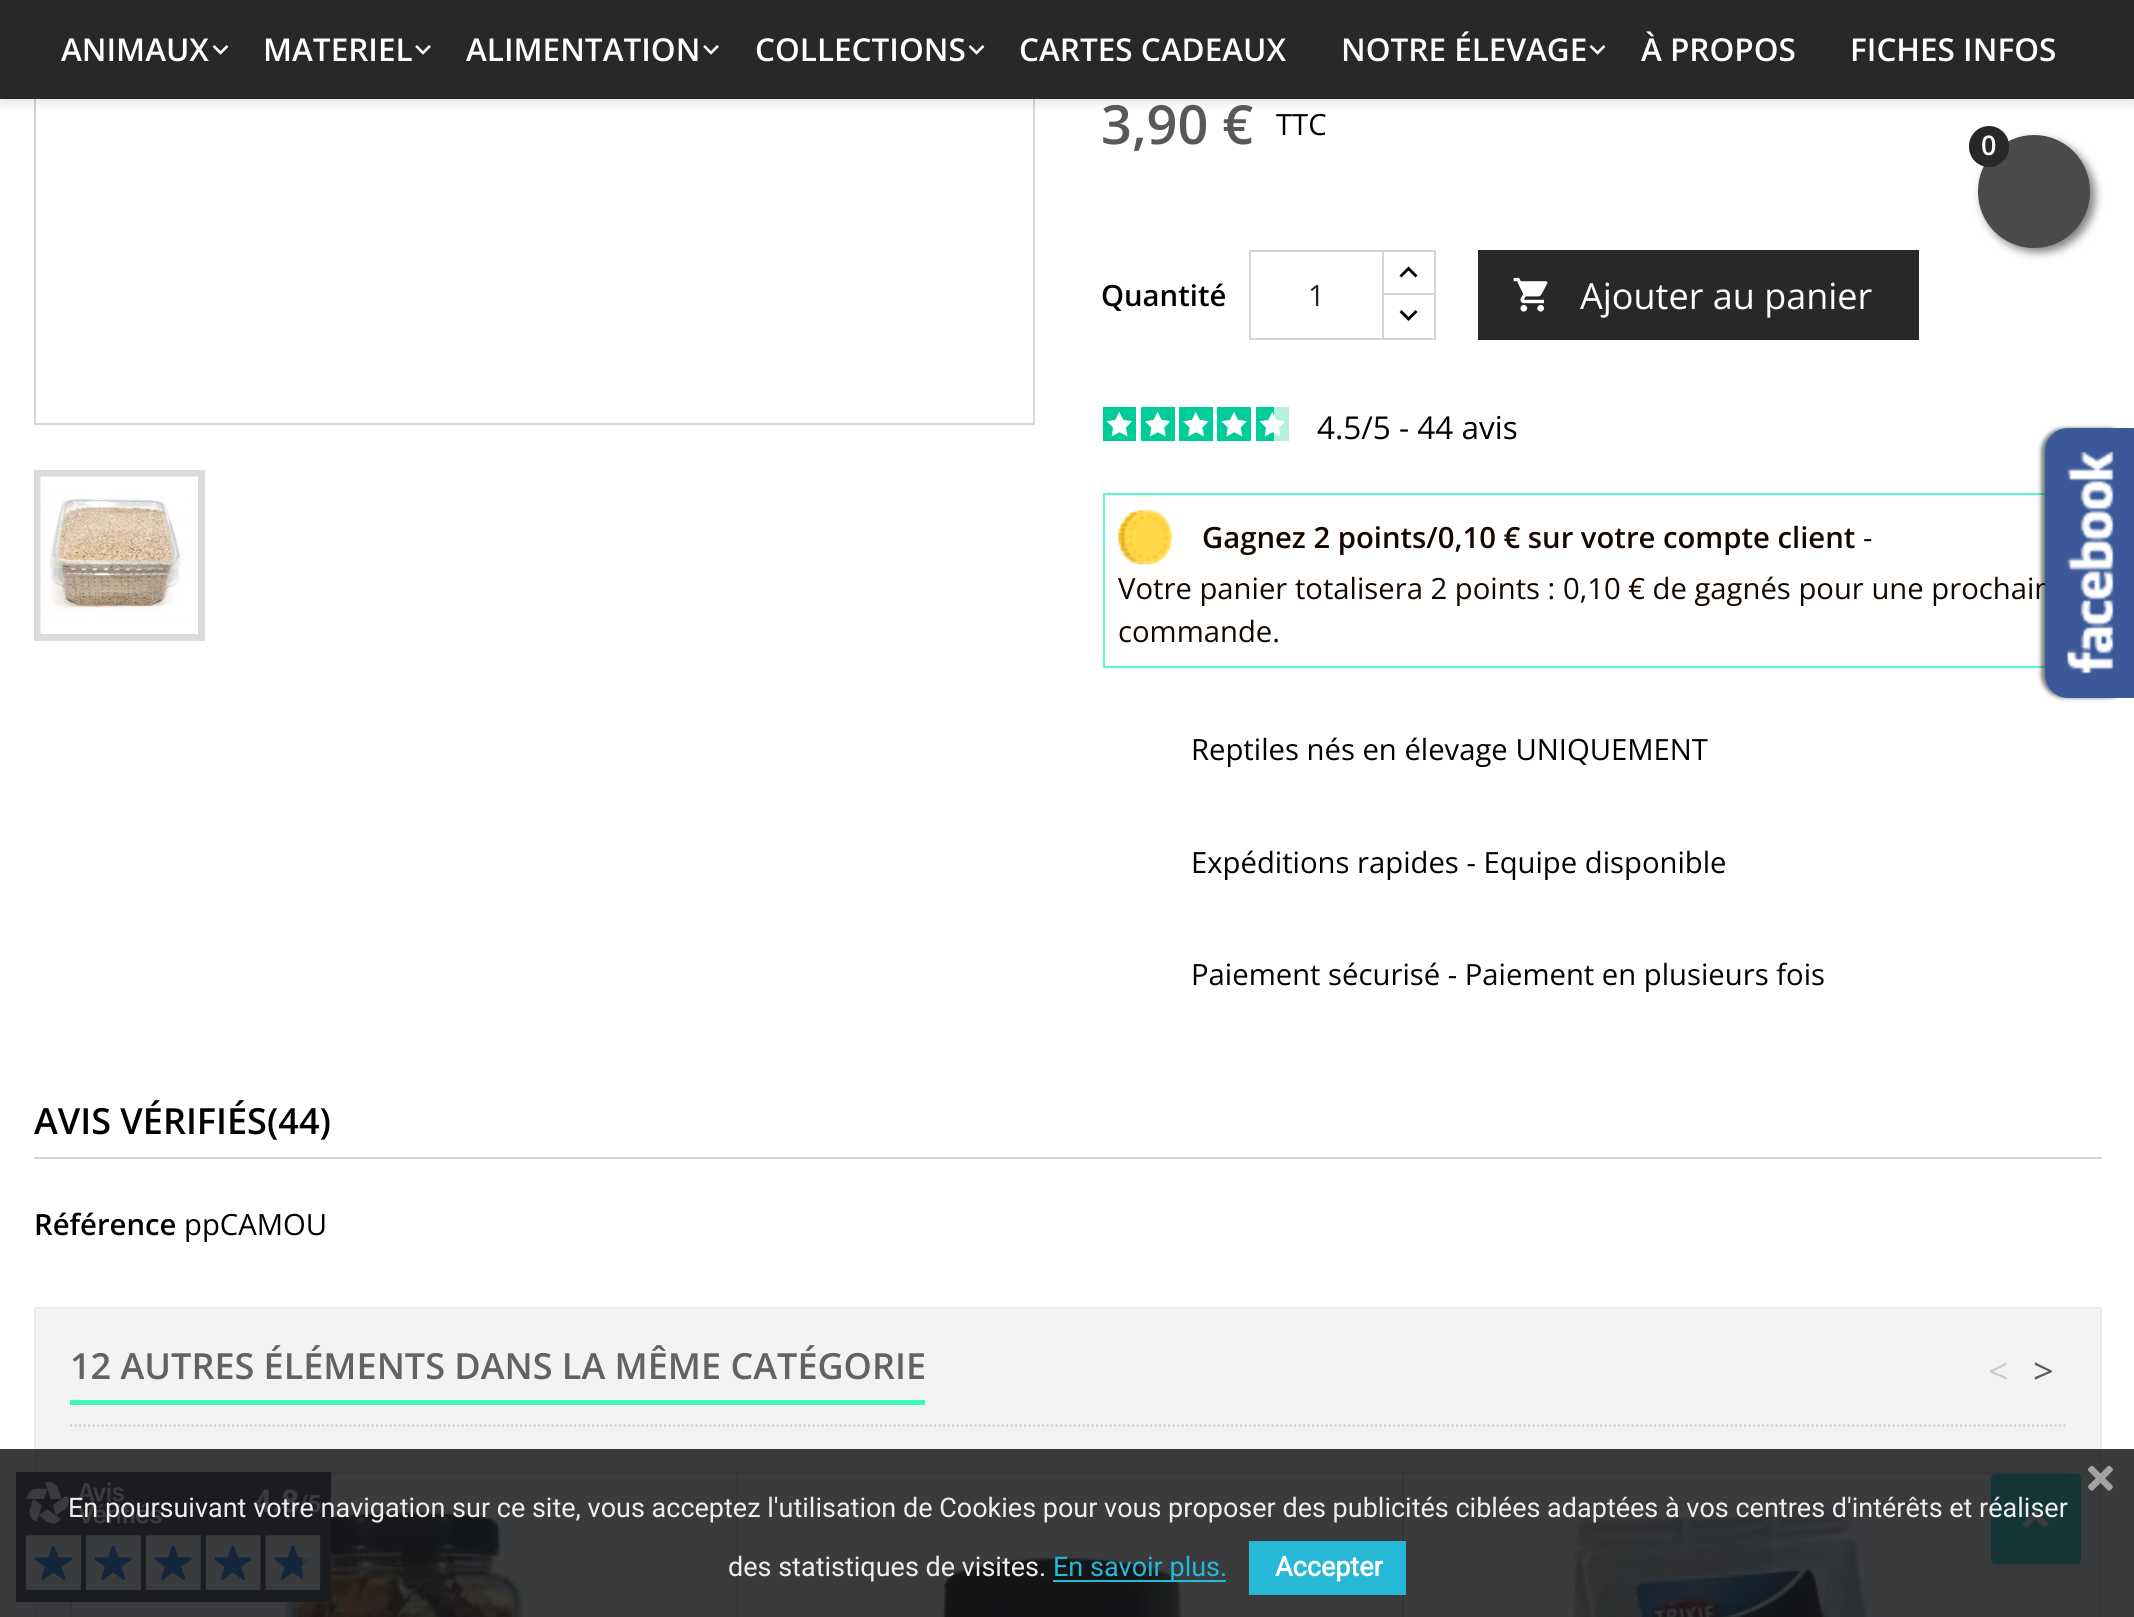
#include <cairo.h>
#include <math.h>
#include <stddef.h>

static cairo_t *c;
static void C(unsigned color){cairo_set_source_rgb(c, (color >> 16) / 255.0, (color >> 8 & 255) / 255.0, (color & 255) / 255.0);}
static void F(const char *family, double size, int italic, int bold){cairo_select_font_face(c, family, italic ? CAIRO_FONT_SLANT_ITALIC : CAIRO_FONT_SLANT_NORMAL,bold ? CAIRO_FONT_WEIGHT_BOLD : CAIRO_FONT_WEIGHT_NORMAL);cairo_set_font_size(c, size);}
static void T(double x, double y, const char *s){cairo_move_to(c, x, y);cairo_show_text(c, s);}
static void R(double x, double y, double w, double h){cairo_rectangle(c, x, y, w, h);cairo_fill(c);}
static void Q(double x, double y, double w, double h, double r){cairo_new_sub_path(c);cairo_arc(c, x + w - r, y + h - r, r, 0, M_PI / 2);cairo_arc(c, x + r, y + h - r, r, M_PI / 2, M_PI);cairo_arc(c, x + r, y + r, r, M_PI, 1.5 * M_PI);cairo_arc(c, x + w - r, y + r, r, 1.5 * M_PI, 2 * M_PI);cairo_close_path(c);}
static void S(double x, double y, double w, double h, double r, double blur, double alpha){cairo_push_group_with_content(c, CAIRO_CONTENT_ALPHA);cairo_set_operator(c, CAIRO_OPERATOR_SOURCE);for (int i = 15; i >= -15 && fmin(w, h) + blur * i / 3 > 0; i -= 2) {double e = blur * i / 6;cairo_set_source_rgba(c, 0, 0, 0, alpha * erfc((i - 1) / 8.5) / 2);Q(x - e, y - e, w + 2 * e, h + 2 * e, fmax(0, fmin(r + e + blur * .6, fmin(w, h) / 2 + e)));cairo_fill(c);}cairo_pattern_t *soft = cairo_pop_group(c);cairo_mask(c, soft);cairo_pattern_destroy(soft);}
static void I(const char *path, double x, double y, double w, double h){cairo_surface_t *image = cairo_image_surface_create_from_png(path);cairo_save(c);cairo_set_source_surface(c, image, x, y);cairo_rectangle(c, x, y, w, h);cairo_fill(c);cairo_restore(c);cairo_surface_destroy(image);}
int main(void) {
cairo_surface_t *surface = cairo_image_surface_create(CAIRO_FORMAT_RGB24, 2134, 1617);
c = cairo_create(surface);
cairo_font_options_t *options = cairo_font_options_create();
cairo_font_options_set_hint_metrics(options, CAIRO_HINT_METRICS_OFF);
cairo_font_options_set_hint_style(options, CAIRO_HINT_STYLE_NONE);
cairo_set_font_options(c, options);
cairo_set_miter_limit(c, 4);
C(0xffffff);
cairo_paint(c);
cairo_rectangle(c,35,-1,999,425);
C(0xd6d4d4);
cairo_stroke(c);
C(0x000000);
S(0,5,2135,99,0,4.5,.1);
C(0x282828);
R(0,0,2134,99);
F("Open Sans SemiBold",31.5,0,0);
C(0xffffff);
T(61,61,"ANIMAUX");
I("1.png",212,45,17,10);
T(263,61,"MATERIEL");
I("2.png",415,45,16,10);
T(466,61,"ALIMENTATION");
I("2.png",703,45,16,10);
T(755,61,"COLLECTIONS");
I("1.png",968,45,17,10);
T(1019,61,"CARTES CADEAUX");
T(1341,61,"NOTRE ÉLEVAGE");
I("1.png",1589,45,17,10);
T(1641,61,"À PROPOS");
T(1850,61,"FICHES INFOS");
C(0x000000);
S(1982,140,113,112,56,4.5,.5);
C(0x4a4a4a);
Q(1978,135,112,113,56);
cairo_fill(c);
C(0x282828);
Q(1969,126,40,41,20);
cairo_fill(c);
F("Open Sans SemiBold",27,0,0);
C(0xffffff);
T(1981,155,"0");
cairo_rectangle(c,37.5,473.5,164,164);
C(0xdbdbdb);
cairo_set_line_width(c,7);
cairo_stroke(c);
I("3.png",40,476,158,158);
F("Open Sans SemiBold",54,0,0);
C(0x585858);
T(1101,144,"3,90 €");
F("Open Sans",29.25,0,0);
C(0x000000);
T(1276,135,"TTC");
F("Open Sans SemiBold",29.25,0,0);
T(1101,306,"Quantité");
cairo_rectangle(c,1383,251,52,45);
C(0xd6d4d4);
cairo_set_line_width(c,2);
cairo_stroke(c);
C(0xffffff);
R(1384,295,50,2);
cairo_rectangle(c,1383,294,52,45);
C(0xd6d4d4);
cairo_stroke(c);
cairo_rectangle(c,1250,251,133,88);
cairo_stroke(c);
F("Open Sans",29.25,0,0);
C(0x232323);
T(1308,306,"1");
C(0x000000);
cairo_new_path(c);
cairo_move_to(c,1408.5,266.5);
cairo_line_to(c,1417.5,275.5);
cairo_line_to(c,1415.5,277.5);
cairo_line_to(c,1408.5,270.5);
cairo_line_to(c,1401.5,277.5);
cairo_line_to(c,1399.5,275.5);
cairo_close_path(c);
cairo_fill(c);
cairo_new_path(c);
cairo_move_to(c,1415.5,310);
cairo_line_to(c,1417.5,312);
cairo_line_to(c,1408.5,321);
cairo_line_to(c,1399.5,312);
cairo_line_to(c,1401.5,310);
cairo_line_to(c,1408.5,317);
cairo_close_path(c);
cairo_fill(c);
C(0x282828);
R(1478,250,441,90);
I("4.png",1513,277,35,35);
F("Open Sans",36,0,0);
C(0xffffff);
T(1580,309,"Ajouter au panier");
C(0x00cc99);
R(1103,407,33,34);
I("5.png",1106,412,27,25);
R(1141,407,34,34);
I("6.png",1144,412,27,25);
R(1179,407,34,34);
I("7.png",1183,412,26,25);
R(1217,407,34,34);
I("8.png",1221,412,26,25);
R(1256,407,18,34);
C(0xb3f0e0);
R(1274,407,15,34);
I("9.png",1259,412,26,25);
F("Open Sans",31.5,0,0);
C(0x000000);
T(1317,439,"4.5/5 - 44 avis");
cairo_rectangle(c,1104,494,997,173);
C(0x55ffc9);
cairo_stroke(c);
I("10.png",1118,510,55,55);
F("Open Sans SemiBold",29.25,0,0);
C(0x140700);
T(1202,548,"Gagnez 2 points/0,10 € sur votre compte client");
F("Open Sans",29.25,0,0);
T(1863,548,"-");
T(1118,599,"Votre panier totalisera 2 points : 0,10 € de gagnés pour une prochain");
T(1118,642,"commande.");
C(0x000000);
T(1191,760,"Reptiles nés en élevage UNIQUEMENT");
T(1191,873,"Expéditions rapides - Equipe disponible");
T(1191,985,"Paiement sécurisé - Paiement en plusieurs fois");
C(0xd6d4d4);
R(34,1157,2068,2);
F("Open Sans SemiBold",36,0,0);
C(0x000000);
T(34,1134,"AVIS VÉRIFIÉS(44)");
F("Open Sans SemiBold",29.25,0,0);
T(34,1235,"Référence");
F("Open Sans",29.25,0,0);
T(184,1235,"ppCAMOU");
C(0xf3f3f3);
cairo_rectangle(c,35,1308,2066,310);
cairo_fill_preserve(c);
C(0xe9e9e9);
cairo_stroke(c);
cairo_new_path(c);
cairo_move_to(c,70,1425.5);
cairo_line_to(c,2065.5,1425.5);
C(0xcfcfcf);
cairo_set_line_width(c,2.2);
cairo_set_dash(c,(double[]){2.25,2.25},2,0);
cairo_stroke(c);
C(0x3bf7bb);
R(70,1400,855,5);
F("Open Sans SemiBold",36,0,0);
C(0x626262);
T(70,1379,"12 AUTRES ÉLÉMENTS DANS LA MÊME CATÉGORIE");
F("Open Sans",36,0,0);
C(0xcccccc);
T(1988,1384,"<");
C(0x585858);
T(2033,1384,">");
C(0xffffff);
cairo_rectangle(c,71,1473,666,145);
cairo_fill_preserve(c);
C(0xd6d4d4);
cairo_set_line_width(c,2);
cairo_set_dash(c,NULL,0,0);
cairo_stroke(c);
I("11.png",283,1508,246,109);
C(0xffffff);
cairo_rectangle(c,737,1473,666,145);
cairo_fill_preserve(c);
C(0xd6d4d4);
cairo_stroke(c);
I("12.png",941,1557,241,60);
C(0xffffff);
R(1404,1474,662,143);
cairo_save(c);
cairo_rectangle(c,70,1472,1996,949);
cairo_clip(c);
cairo_rectangle(c,1403,1473,666,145);
C(0xd6d4d4);
cairo_stroke(c);
cairo_restore(c);
I("13.png",1572,1508,310,109);
C(0x000000);
S(2041,428,90,270,23,2,.5);
C(0x3b5998);
cairo_new_path(c);
cairo_move_to(c,2068,428);
cairo_line_to(c,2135,428);
cairo_line_to(c,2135,698);
cairo_line_to(c,2068,698);
cairo_curve_to(c,2055.5,698,2045,687.5,2045,675);
cairo_line_to(c,2045,451);
cairo_curve_to(c,2045,438.5,2055.5,428,2068,428);
cairo_close_path(c);
cairo_fill(c);
I("14.png",2067,451,47,223);
C(0x000000);
S(1991,1476,90,90,5,1,.1);
C(0x00d6c8);
Q(1991,1474,90,90,5);
cairo_fill(c);
I("15.png",2022,1511,27,17);
I("16.png",16,1472,315,130);
cairo_set_source_rgba(c,0.09,0.098,0.11,0.85);
R(0,1449,2134,168);
I("17.png",2088,1465,25,26);
F("Roboto",27,0,0);
C(0xefefef);
T(68,1517,"En poursuivant votre navigation sur ce site, vous acceptez l'utilisation de Cookies pour vous proposer des publicités ciblées adaptées à vos centres d'intérêts et réaliser");
T(728,1576,"des statistiques de visites.");
C(0x25b9d7);
R(1053,1580,173,2);
T(1053,1576,"En savoir plus.");
R(1249,1541,157,54);
F("Roboto",27,0,1);
C(0xffffff);
T(1275,1576,"Accepter");
cairo_surface_write_to_png(surface, "o.png");
cairo_font_options_destroy(options);
cairo_destroy(c);
cairo_surface_destroy(surface);
return 0;
}
